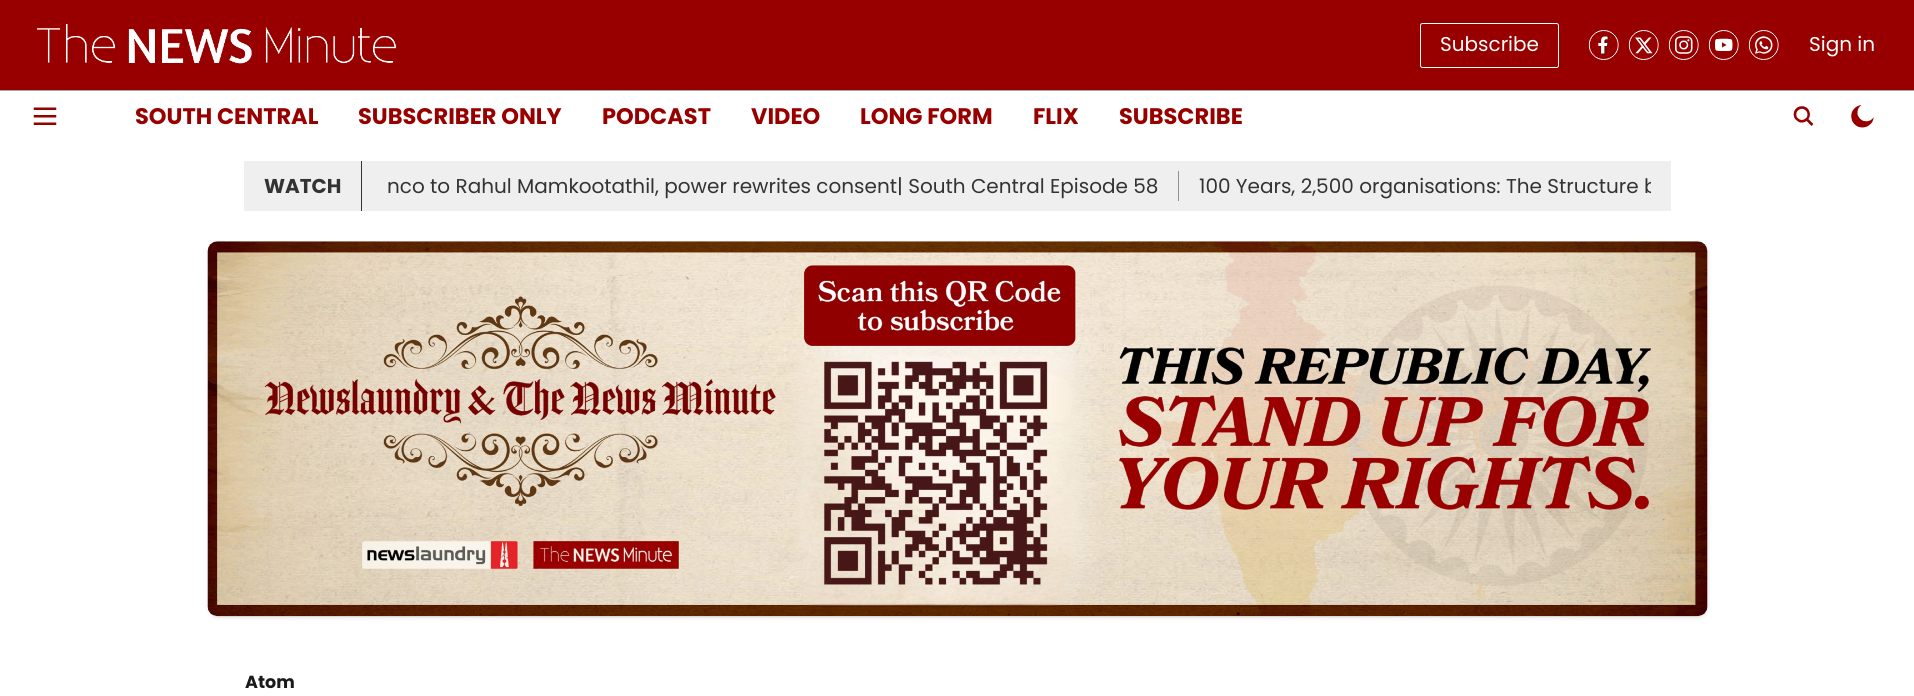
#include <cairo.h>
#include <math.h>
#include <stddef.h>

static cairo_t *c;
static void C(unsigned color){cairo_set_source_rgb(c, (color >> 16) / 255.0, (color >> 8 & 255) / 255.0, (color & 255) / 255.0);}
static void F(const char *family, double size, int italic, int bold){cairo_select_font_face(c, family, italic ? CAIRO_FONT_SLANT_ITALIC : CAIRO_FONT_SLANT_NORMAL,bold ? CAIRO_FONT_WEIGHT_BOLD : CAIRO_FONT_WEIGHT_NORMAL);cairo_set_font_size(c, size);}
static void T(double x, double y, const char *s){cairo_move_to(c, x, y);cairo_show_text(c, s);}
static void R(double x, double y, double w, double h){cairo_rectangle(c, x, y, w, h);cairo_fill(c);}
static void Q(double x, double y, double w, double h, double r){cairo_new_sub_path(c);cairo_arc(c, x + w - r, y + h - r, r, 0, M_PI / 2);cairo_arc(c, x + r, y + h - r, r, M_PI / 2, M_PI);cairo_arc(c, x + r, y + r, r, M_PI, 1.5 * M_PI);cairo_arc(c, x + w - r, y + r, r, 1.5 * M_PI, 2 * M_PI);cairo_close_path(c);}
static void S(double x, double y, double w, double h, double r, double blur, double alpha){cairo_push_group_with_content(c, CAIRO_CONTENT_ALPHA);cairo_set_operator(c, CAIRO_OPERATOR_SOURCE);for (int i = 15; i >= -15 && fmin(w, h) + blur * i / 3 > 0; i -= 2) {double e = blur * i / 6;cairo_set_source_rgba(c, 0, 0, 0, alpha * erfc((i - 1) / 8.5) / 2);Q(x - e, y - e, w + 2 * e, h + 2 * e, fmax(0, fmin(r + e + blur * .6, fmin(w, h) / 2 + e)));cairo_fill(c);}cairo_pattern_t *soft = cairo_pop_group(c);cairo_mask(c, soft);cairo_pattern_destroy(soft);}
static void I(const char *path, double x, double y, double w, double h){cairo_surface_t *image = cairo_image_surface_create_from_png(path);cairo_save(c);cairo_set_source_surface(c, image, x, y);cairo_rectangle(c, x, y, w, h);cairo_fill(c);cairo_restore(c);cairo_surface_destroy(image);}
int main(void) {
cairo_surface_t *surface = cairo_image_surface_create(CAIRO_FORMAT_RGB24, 1914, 696);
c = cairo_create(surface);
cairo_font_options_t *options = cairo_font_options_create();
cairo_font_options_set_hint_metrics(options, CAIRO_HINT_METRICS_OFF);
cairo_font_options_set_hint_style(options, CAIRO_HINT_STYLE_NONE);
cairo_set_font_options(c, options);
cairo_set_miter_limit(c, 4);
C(0xffffff);
cairo_paint(c);
C(0x980000);
R(0,0,1914,90);
C(0xa4a4a4);
R(0,90,1914,1);
I("1.png",37,23,360,41);
Q(1420.5,23.5,138,44,2);
C(0xffffff);
cairo_set_line_width(c,1);
cairo_stroke(c);
F("Poppins",20,0,0);
T(1440,51,"Subscribe");
I("2.png",1588,30,31,30);
I("3.png",1628,30,31,30);
I("4.png",1668,30,31,30);
I("5.png",1708,30,31,30);
I("6.png",1748,30,31,30);
T(1809,51,"Sign in");
I("7.png",33,107,24,18);
F("Poppins",22.5,0,1);
C(0x980000);
T(135,124,"SOUTH CENTRAL");
T(358,124,"SUBSCRIBER ONLY");
T(602,124,"PODCAST");
T(751,124,"VIDEO");
T(860,124,"LONG FORM");
T(1033,124,"FLIX");
T(1119,124,"SUBSCRIBE");
I("8.png",1793,106,21,20);
I("9.png",1851,105,23,23);
C(0xefefef);
R(244,161,1427,50);
C(0x333333);
R(361,161,1,50);
F("Poppins",20,0,1);
T(264,193,"WATCH");
F("Poppins",20,0,0);
T(387,193,"nco to Rahul Mamkootathil, power rewrites consent| South Central Episode 58");
C(0x919191);
R(1178,171,1,30);
cairo_save(c);
cairo_rectangle(c,383,171,1268,30);
cairo_clip(c);
C(0x333333);
T(1199,193,"100 Years, 2,500 organisations: The Structure b");
cairo_restore(c);
C(0x000000);
S(209,244,1497,372,9,1,.1);
S(208,243,1500,375,10,2,.1);
I("10.png",207,241,1501,376);
F("Poppins",17.5,0,1);
C(0x1a1a1a);
T(245,688,"Atom");
cairo_surface_write_to_png(surface, "o.png");
cairo_font_options_destroy(options);
cairo_destroy(c);
cairo_surface_destroy(surface);
return 0;
}
